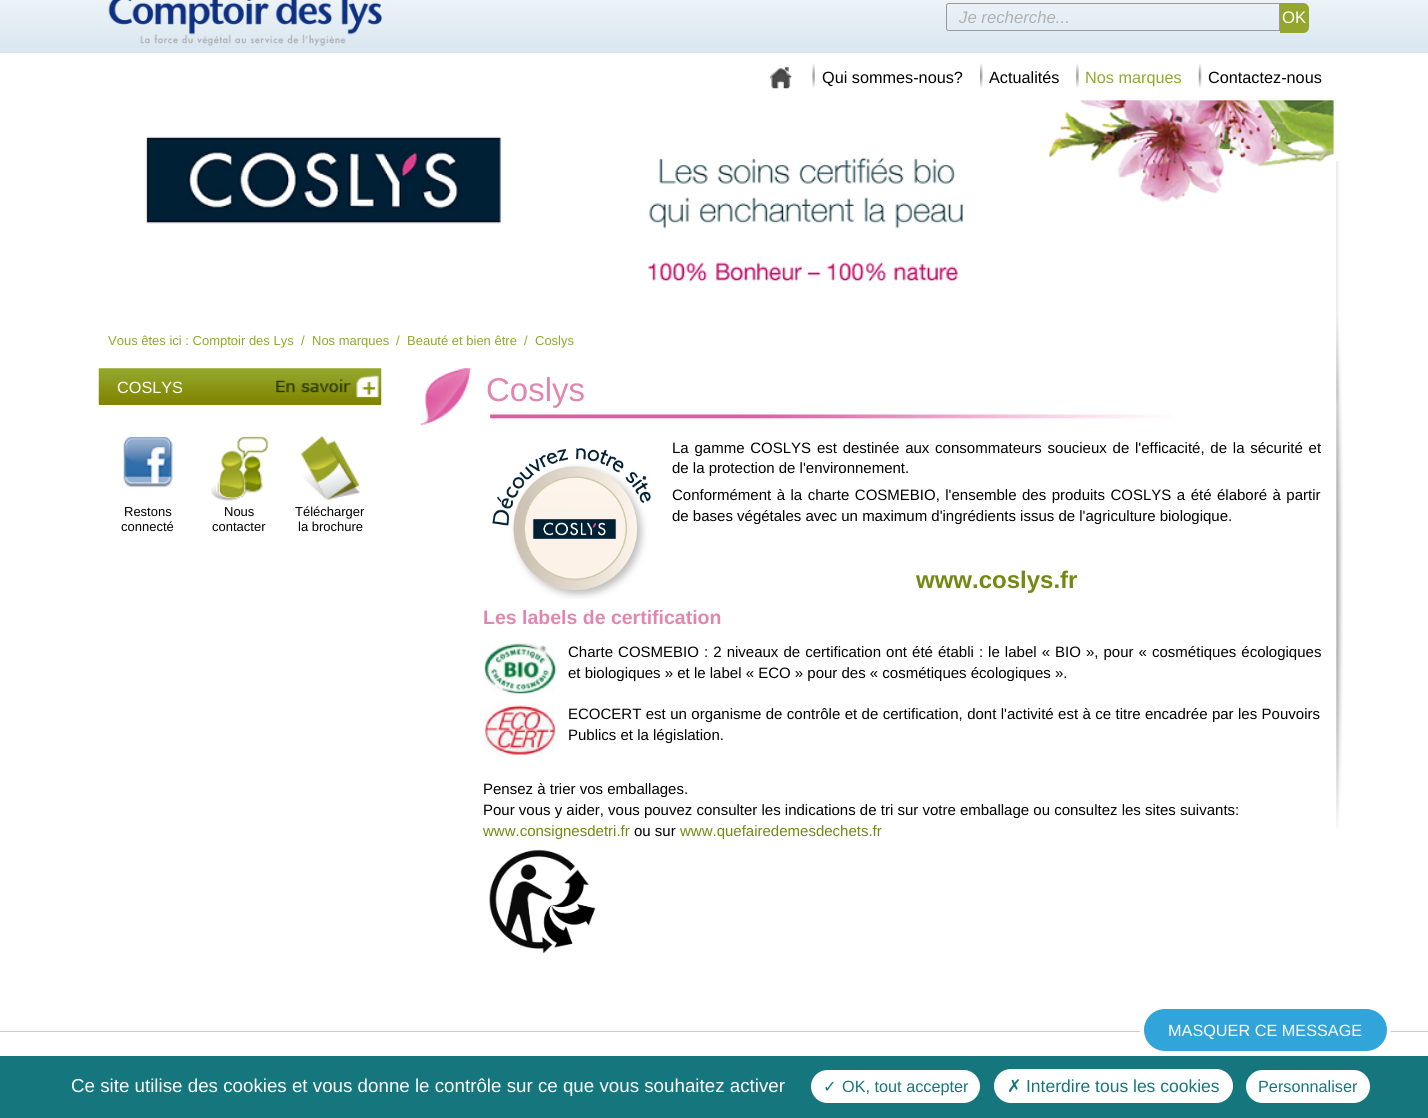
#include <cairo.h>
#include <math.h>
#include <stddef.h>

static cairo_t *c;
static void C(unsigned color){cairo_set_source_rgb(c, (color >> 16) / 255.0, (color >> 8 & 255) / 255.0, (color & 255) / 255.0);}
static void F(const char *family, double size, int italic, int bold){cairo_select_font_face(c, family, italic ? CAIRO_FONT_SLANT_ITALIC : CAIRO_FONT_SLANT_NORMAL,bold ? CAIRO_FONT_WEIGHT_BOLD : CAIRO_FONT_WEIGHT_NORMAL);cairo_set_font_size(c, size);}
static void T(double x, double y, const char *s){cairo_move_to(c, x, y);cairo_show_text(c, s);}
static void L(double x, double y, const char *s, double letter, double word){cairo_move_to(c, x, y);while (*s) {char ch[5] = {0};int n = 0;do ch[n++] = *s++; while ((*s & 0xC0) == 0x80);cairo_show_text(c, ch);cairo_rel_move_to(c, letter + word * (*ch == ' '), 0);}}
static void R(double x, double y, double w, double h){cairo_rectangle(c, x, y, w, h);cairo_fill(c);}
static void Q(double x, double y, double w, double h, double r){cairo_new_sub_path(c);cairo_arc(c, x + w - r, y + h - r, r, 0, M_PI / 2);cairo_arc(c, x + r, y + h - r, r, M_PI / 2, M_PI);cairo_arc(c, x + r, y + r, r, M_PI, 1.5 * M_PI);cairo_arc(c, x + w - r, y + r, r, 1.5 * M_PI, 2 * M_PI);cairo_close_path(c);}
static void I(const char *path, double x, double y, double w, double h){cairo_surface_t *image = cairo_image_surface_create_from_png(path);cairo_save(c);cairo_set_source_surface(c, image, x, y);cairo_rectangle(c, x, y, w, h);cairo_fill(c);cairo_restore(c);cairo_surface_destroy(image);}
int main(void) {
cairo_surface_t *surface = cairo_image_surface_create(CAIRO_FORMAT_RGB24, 1428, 1118);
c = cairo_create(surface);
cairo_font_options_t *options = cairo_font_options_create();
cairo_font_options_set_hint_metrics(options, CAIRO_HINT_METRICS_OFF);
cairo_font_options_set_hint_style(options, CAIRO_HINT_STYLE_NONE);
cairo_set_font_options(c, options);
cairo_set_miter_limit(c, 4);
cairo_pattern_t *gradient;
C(0xffffff);
cairo_paint(c);
gradient = cairo_pattern_create_linear(714,-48,714,100);
cairo_pattern_add_color_stop_rgba(gradient,0,1,1,1,1);
cairo_pattern_add_color_stop_rgba(gradient,1,0.78,0.855,0.91,1);
cairo_set_source(c,gradient);
cairo_pattern_destroy(gradient);
R(0,0,1428,53);
I("1.png",108,0,274,46);
cairo_new_path(c);
cairo_move_to(c,948.5,3.5);
cairo_line_to(c,1279.5,3.5);
cairo_line_to(c,1279.5,30.5);
cairo_line_to(c,948.5,30.5);
cairo_curve_to(c,947.5,30.5,946.5,29.5,946.5,28.5);
cairo_line_to(c,946.5,5.5);
cairo_curve_to(c,946.5,4.5,947.5,3.5,948.5,3.5);
cairo_close_path(c);
C(0x999999);
cairo_set_line_width(c,1);
cairo_stroke(c);
F("Liberation Sans",16.75,1,0);
C(0xb1b1b1);
T(959,23,"Je recherche...");
C(0x94a62c);
cairo_new_path(c);
cairo_move_to(c,1280,3);
cairo_line_to(c,1303,3);
cairo_curve_to(c,1306.5,3,1309,5.5,1309,9);
cairo_line_to(c,1309,27);
cairo_curve_to(c,1309,30.5,1306.5,33,1303,33);
cairo_line_to(c,1280,33);
cairo_close_path(c);
cairo_fill(c);
F("Liberation Sans",16.75,0,0);
C(0xffffff);
T(1282,23,"OK");
I("2.png",770,66,22,23);
I("3.png",812,63,3,25);
F("Liberation Sans",16.25,0,0);
C(0x000000);
T(822,83,"Qui sommes-nous?");
I("4.png",980,63,3,25);
T(989,83,"Actualités");
I("5.png",1076,63,3,25);
C(0x94a62c);
T(1085,83,"Nos marques");
I("6.png",1198,63,4,25);
C(0x000000);
T(1208,83,"Contactez-nous");
I("7.png",145,100,1189,182);
F("Liberation Sans",13,0,0);
C(0x94a62c);
T(108,345,"Vous êtes ici : Comptoir des Lys");
T(301,345,"/");
T(312,345,"Nos marques");
T(396,345,"/");
T(407,345,"Beauté et bien être");
T(524,345,"/");
T(535,345,"Coslys");
I("8.png",1336,161,7,668);
C(0x818702);
R(99,404,282,1);
I("9.png",98,368,284,37);
I("10.png",276,375,103,23);
F("Liberation Sans",16.25,0,0);
C(0xffffff);
T(117,393,"COSLYS");
I("11.png",123,436,50,52);
F("Liberation Sans",13,0,0);
C(0x000000);
T(124,516,"Restons");
T(121,531,"connecté");
I("12.png",211,436,57,65);
T(224,516,"Nous");
T(212,531,"contacter");
I("13.png",301,435,60,66);
T(295,516,"Télécharger");
T(298,531,"la brochure");
I("14.png",420,368,751,58);
F("Liberation Sans",33,0,0);
C(0xe186b1);
T(486,401,"Coslys");
I("15.png",492,448,159,151);
F("Liberation Sans",15,0,0);
C(0x000000);
L(672,453,"La gamme COSLYS est destinée aux consommateurs soucieux de l'efficacité, de la sécurité et",0,1.6);
T(672,473,"de la protection de l'environnement.");
L(672,500,"Conformément à la charte COSMEBIO, l'ensemble des produits COSLYS a été élaboré à partir",0,1.3);
T(672,521,"de bases végétales avec un maximum d'ingrédients issus de l'agriculture biologique.");
F("Liberation Sans",24,0,1);
C(0x748812);
T(916,588,"www.coslys.fr");
F("Liberation Sans",19.5,0,1);
C(0xe186b1);
T(483,624,"Les labels de certification");
I("16.png",484,642,73,52);
F("Liberation Sans",15,0,0);
C(0x000000);
L(568,657,"Charte COSMEBIO : 2 niveaux de certification ont été établi : le label « BIO », pour « cosmétiques écologiques",0,.9);
T(568,678,"et biologiques » et le label « ECO » pour des « cosmétiques écologiques ».");
I("17.png",484,703,72,52);
L(568,719,"ECOCERT est un organisme de contrôle et de certification, dont l'activité est à ce titre encadrée par les Pouvoirs",0,.25);
T(568,740,"Publics et la législation.");
T(483,794,"Pensez à trier vos emballages.");
T(483,815,"Pour vous y aider, vous pouvez consulter les indications de tri sur votre emballage ou consultez les sites suivants:");
C(0x748812);
T(483,836,"www.consignesdetri.fr");
C(0x000000);
T(634,836,"ou sur");
C(0x748812);
T(680,836,"www.quefairedemesdechets.fr");
I("18.png",489,849,107,105);
C(0xcccccc);
R(0,1031,1428,1);
C(0x31a5da);
Q(1142,1007,247,46,23);
cairo_fill_preserve(c);
C(0xffffff);
cairo_set_line_width(c,4);
cairo_stroke(c);
F("Liberation Sans",16.25,0,0);
T(1168,1036,"MASQUER CE MESSAGE");
C(0x15767d);
R(0,1056,1428,62);
F("Liberation Sans",18.75,0,0);
C(0xffffff);
T(71,1092,"Ce site utilise des cookies et vous donne le contrôle sur ce que vous souhaitez activer");
Q(811,1070,169,33,16.5);
cairo_fill(c);
F("DejaVu Sans",16.25,0,0);
C(0x15767d);
T(823,1092,"✓");
F("Liberation Sans",16.25,0,0);
T(842,1092,"OK, tout accepter");
C(0xffffff);
Q(994,1069,239,34,17);
cairo_fill(c);
F("DejaVu Sans",17.5,0,0);
C(0x15767d);
T(1007,1092,"✗");
F("Liberation Sans",17.5,0,0);
T(1026,1092,"Interdire tous les cookies");
C(0xffffff);
Q(1246,1070,124,33,16.5);
cairo_fill(c);
F("Liberation Sans",16.25,0,0);
C(0x15767d);
T(1258,1092,"Personnaliser");
cairo_surface_write_to_png(surface, "o.png");
cairo_font_options_destroy(options);
cairo_destroy(c);
cairo_surface_destroy(surface);
return 0;
}
